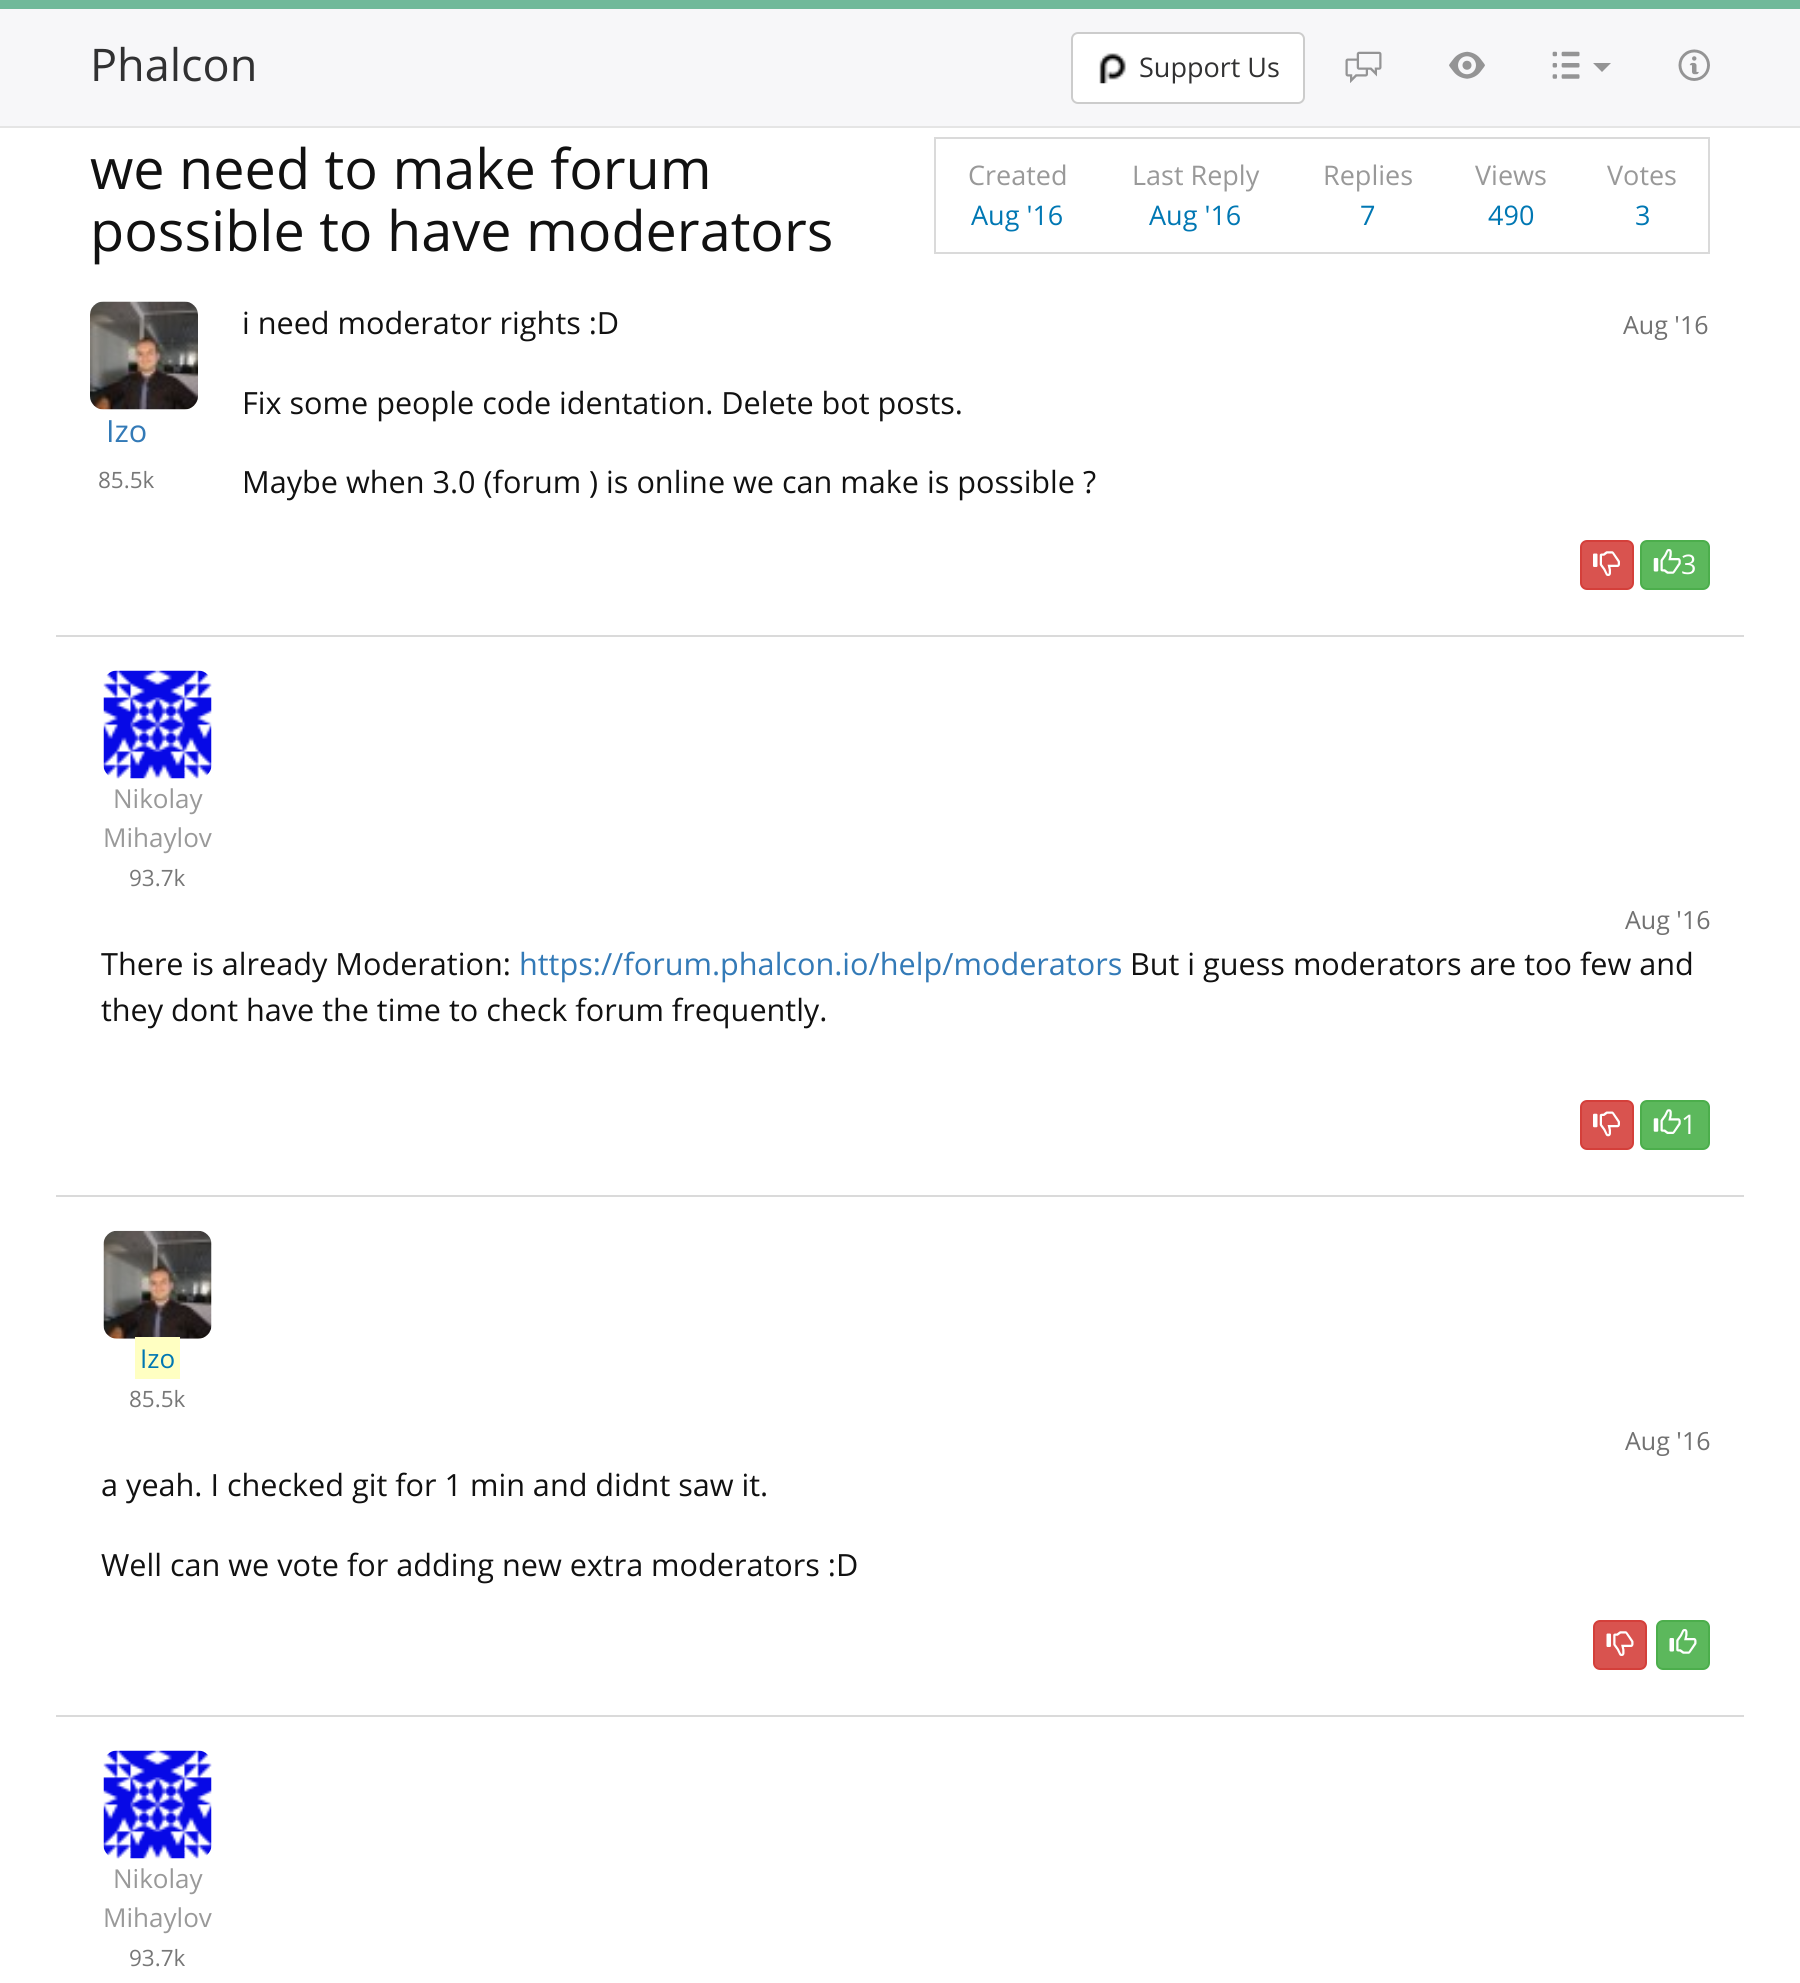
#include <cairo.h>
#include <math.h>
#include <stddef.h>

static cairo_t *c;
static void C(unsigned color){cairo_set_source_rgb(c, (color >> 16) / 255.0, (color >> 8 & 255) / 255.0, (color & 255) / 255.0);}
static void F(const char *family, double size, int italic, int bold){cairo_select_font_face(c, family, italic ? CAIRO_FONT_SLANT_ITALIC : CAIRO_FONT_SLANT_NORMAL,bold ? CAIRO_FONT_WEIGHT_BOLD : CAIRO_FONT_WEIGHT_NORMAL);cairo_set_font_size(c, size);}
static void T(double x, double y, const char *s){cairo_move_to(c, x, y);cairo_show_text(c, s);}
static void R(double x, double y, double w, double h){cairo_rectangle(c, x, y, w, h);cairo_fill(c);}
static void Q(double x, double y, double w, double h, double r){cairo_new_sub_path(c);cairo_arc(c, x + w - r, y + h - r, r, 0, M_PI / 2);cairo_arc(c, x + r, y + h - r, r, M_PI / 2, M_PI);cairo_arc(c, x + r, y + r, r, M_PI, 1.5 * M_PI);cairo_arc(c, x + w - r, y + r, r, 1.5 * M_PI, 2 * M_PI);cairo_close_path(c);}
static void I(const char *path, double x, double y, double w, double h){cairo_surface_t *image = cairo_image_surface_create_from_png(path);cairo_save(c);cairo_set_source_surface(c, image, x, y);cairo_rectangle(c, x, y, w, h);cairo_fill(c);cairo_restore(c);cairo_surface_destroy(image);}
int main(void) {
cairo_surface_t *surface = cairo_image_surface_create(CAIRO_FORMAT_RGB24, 1800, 1983);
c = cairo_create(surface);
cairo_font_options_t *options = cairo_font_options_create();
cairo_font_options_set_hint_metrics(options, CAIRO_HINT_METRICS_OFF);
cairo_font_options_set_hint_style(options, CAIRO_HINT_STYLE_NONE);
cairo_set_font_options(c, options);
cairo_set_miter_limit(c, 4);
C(0xffffff);
cairo_paint(c);
C(0xf7f7f9);
R(0,9,1800,117);
C(0x70b99a);
R(0,0,1800,9);
C(0xe5e5e5);
R(0,126,1800,2);
F("Open Sans",45,0,0);
C(0x313132);
T(90,81,"Phalcon");
C(0xffffff);
Q(1072,33,232,70,6);
cairo_fill_preserve(c);
C(0xcccccc);
cairo_stroke(c);
I("1.png",1099,53,27,31);
F("Open Sans",27,0,0);
C(0x313132);
T(1139,77,"Support Us");
I("2.png",1345,51,37,32);
I("3.png",1449,51,36,28);
I("4.png",1552,51,28,28);
C(0x949495);
cairo_new_path(c);
cairo_move_to(c,1593,63);
cairo_line_to(c,1611,63);
cairo_line_to(c,1602,72);
cairo_close_path(c);
cairo_fill(c);
I("5.png",1678,49,32,32);
F("Open Sans",55.75,0,0);
C(0x111111);
T(90,189,"we need to make forum");
T(90,251,"possible to have moderators");
C(0xdadada);
R(934,137,776,2);
R(1708,137,2,117);
R(934,252,776,2);
R(934,137,2,117);
F("Open Sans",27,0,0);
C(0x999999);
T(968,185,"Created");
C(0x0077b3);
T(971,225,"Aug '16");
C(0x999999);
T(1132,185,"Last Reply");
C(0x0077b3);
T(1149,225,"Aug '16");
C(0x999999);
T(1323,185,"Replies");
C(0x0077b3);
T(1360,225,"7");
C(0x999999);
T(1475,185,"Views");
C(0x0077b3);
T(1488,225,"490");
C(0x999999);
T(1607,185,"Votes");
C(0x0077b3);
T(1635,225,"3");
C(0xdadada);
R(56,635,1688,2);
I("6.png",90,301,108,109);
F("Open Sans",30.6,0,0);
C(0x337ab7);
T(106,442,"Izo");
F("Open Sans",22.5,0,0);
C(0x777777);
T(98,488,"85.5k");
F("Open Sans",30.6,0,0);
C(0x111111);
T(242,334,"i need moderator rights :D");
T(242,414,"Fix some people code identation. Delete bot posts.");
T(242,493,"Maybe when 3.0 (forum ) is online we can make is possible ?");
F("Open Sans",25,0,0);
C(0x717171);
T(1623,334,"Aug '16");
C(0xd9534f);
Q(1581,541,52,48,6);
cairo_fill_preserve(c);
C(0xd43f3a);
cairo_stroke(c);
I("7.png",1593,551,27,25);
C(0x5cb85c);
Q(1641,541,68,48,6);
cairo_fill_preserve(c);
C(0x4cae4c);
cairo_stroke(c);
I("8.png",1653,549,28,25);
F("Open Sans",27,0,0);
C(0xffffff);
T(1681,574,"3");
C(0xdadada);
R(56,1195,1688,2);
I("9.png",103,670,109,109);
F("Open Sans",26,0,0);
C(0x999999);
T(113,808,"Nikolay");
T(103,847,"Mihaylov");
F("Open Sans",22.5,0,0);
C(0x777777);
T(129,886,"93.7k");
F("Open Sans",25,0,0);
C(0x717171);
T(1625,929,"Aug '16");
F("Open Sans",30.6,0,0);
C(0x111111);
T(101,975,"There is already Moderation:");
C(0x337ab7);
T(519,975,"https://forum.phalcon.io/help/moderators");
C(0x111111);
T(1130,975,"But i guess moderators are too few and");
T(101,1021,"they dont have the time to check forum frequently.");
C(0xd9534f);
Q(1581,1101,52,48,6);
cairo_fill_preserve(c);
C(0xd43f3a);
cairo_stroke(c);
I("10.png",1593,1111,27,26);
C(0x5cb85c);
Q(1641,1101,68,48,6);
cairo_fill_preserve(c);
C(0x4cae4c);
cairo_stroke(c);
I("11.png",1653,1109,28,25);
F("Open Sans",27,0,0);
C(0xffffff);
T(1681,1134,"1");
C(0xdadada);
R(56,1715,1688,2);
I("12.png",103,1230,109,109);
C(0xffffc2);
R(135,1337,45,42);
F("Open Sans",26,0,0);
C(0x0077b3);
T(140,1368,"Izo");
F("Open Sans",22.5,0,0);
C(0x777777);
T(129,1407,"85.5k");
F("Open Sans",25,0,0);
C(0x717171);
T(1625,1450,"Aug '16");
F("Open Sans",30.6,0,0);
C(0x111111);
T(101,1496,"a yeah. I checked git for 1 min and didnt saw it.");
T(101,1576,"Well can we vote for adding new extra moderators :D");
C(0xd9534f);
Q(1594,1621,52,48,6);
cairo_fill_preserve(c);
C(0xd43f3a);
cairo_stroke(c);
I("13.png",1606,1631,28,25);
C(0x5cb85c);
Q(1657,1621,52,48,6);
cairo_fill_preserve(c);
C(0x4cae4c);
cairo_stroke(c);
I("14.png",1669,1629,28,25);
I("15.png",103,1750,109,109);
F("Open Sans",26,0,0);
C(0x999999);
T(113,1888,"Nikolay");
T(103,1927,"Mihaylov");
F("Open Sans",22.5,0,0);
C(0x777777);
T(129,1966,"93.7k");
cairo_surface_write_to_png(surface, "o.png");
cairo_font_options_destroy(options);
cairo_destroy(c);
cairo_surface_destroy(surface);
return 0;
}
